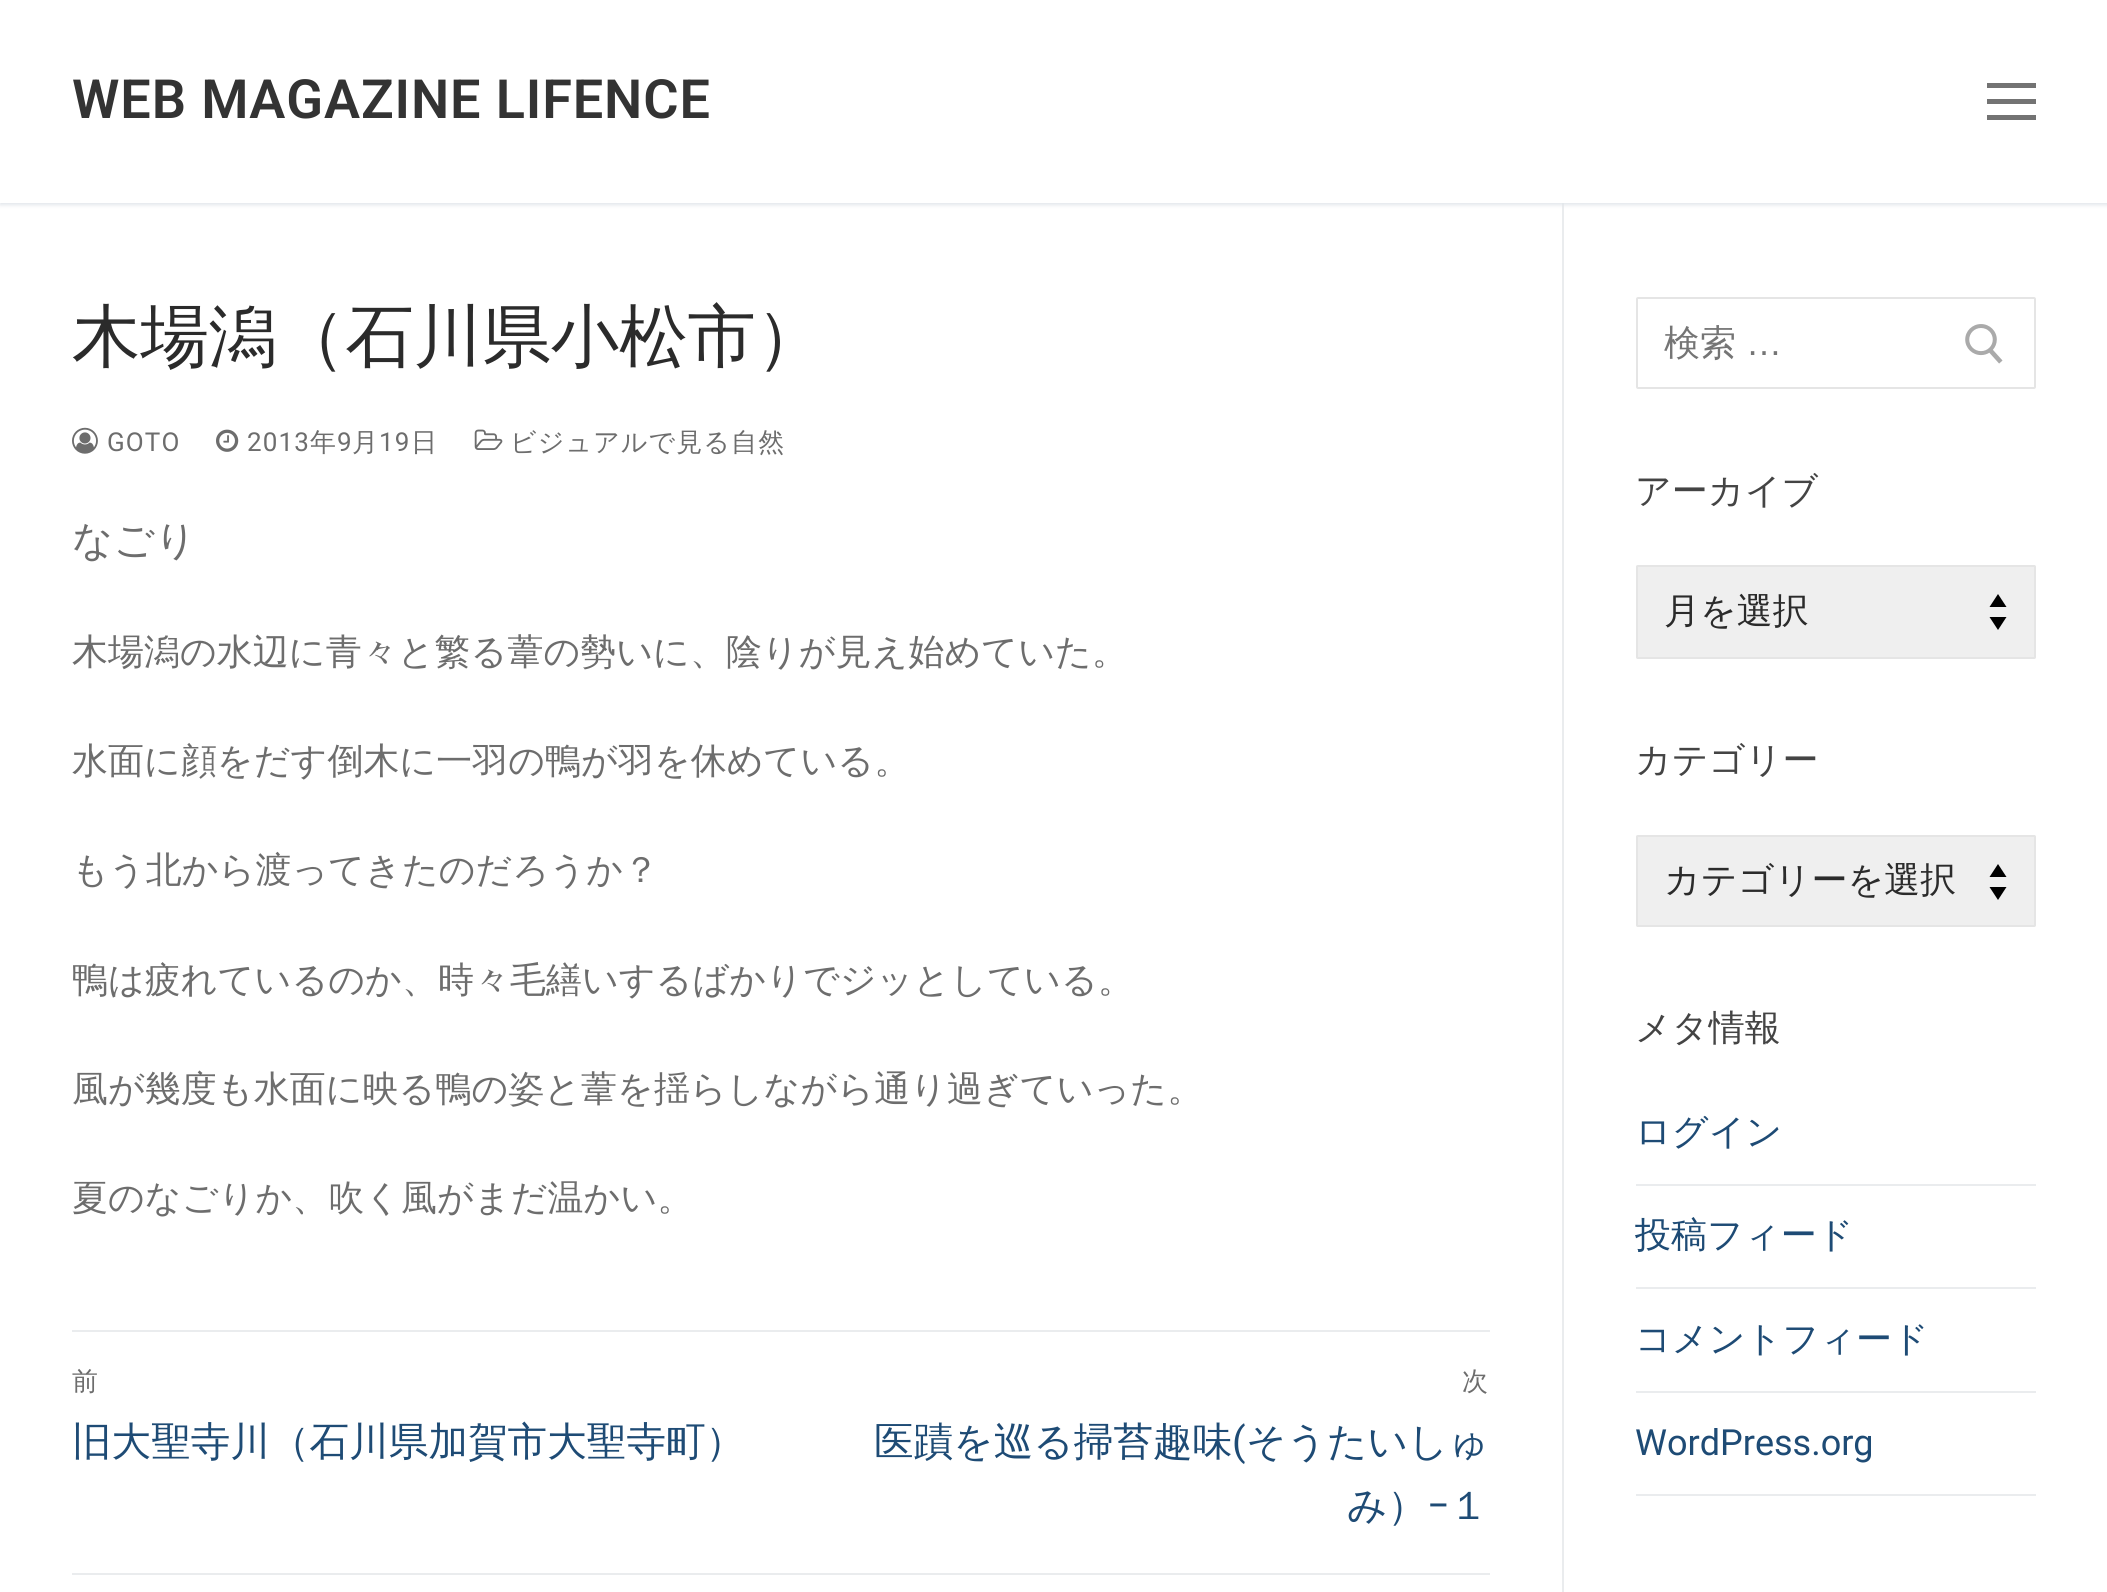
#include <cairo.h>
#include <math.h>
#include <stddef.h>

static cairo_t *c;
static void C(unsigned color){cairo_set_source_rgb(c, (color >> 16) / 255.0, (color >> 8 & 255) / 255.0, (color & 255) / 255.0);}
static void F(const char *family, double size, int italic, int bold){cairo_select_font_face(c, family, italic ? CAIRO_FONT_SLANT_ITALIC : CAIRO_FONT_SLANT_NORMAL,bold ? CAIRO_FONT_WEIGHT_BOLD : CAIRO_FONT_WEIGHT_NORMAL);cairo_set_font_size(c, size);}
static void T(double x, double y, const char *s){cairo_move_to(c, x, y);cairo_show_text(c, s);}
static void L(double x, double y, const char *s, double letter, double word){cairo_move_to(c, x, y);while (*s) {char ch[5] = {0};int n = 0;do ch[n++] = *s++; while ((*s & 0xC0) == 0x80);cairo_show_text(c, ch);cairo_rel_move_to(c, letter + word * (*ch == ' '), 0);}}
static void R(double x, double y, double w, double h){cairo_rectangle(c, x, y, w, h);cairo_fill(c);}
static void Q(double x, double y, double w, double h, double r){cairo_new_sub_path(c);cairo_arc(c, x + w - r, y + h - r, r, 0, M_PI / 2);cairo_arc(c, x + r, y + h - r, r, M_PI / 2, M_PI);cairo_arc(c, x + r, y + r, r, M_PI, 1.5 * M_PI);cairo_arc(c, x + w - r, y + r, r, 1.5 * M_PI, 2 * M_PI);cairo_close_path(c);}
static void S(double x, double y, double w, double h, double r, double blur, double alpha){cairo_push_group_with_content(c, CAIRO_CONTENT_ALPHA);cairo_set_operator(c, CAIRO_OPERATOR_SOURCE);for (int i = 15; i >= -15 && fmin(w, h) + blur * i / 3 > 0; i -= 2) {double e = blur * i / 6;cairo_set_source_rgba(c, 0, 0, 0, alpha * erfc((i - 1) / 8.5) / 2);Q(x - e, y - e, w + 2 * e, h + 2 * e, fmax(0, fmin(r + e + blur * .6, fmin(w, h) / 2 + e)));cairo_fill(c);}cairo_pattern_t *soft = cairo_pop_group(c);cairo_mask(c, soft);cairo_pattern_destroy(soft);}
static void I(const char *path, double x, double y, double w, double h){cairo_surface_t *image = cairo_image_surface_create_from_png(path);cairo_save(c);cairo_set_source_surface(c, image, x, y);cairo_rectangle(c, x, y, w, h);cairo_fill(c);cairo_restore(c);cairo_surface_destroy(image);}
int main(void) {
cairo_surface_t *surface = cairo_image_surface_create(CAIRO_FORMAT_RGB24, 2107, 1592);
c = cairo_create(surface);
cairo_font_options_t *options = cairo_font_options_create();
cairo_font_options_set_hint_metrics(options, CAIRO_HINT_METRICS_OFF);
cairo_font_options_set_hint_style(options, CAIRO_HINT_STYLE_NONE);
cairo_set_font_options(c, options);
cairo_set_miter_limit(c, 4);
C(0xffffff);
cairo_paint(c);
C(0xeaecee);
R(1562,203,2,1389);
C(0xe1e5ea);
S(0,2,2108,203,0,2,1);
C(0xffffff);
R(0,0,2107,203);
F("Roboto SemiBold",54,0,0);
C(0x333333);
L(72,118,"WEB MAGAZINE LIFENCE",.9,0);
C(0x737373);
R(1987,99,49,5);
R(1987,83,49,5);
R(1987,115,49,5);
F("WenQuanYi Zen Hei Medium",68.4,0,0);
C(0x2b2b2b);
T(72,360,"木場潟（石川県小松市）");
I("1.png",72,427,26,27);
F("Roboto",26,0,0);
C(0x6d6d6d);
L(107,451,"GOTO",1.1,0);
I("2.png",216,429,23,23);
L(247,451,"2013",1.1,0);
F("WenQuanYi Zen Hei Medium",26,0,0);
L(310,451,"年",1.1,0);
F("Roboto",26,0,0);
L(337,451,"9",1.1,0);
F("WenQuanYi Zen Hei Medium",26,0,0);
L(352,451,"月",1.1,0);
F("Roboto",26,0,0);
L(379,451,"19",1.1,0);
F("WenQuanYi Zen Hei Medium",26,0,0);
L(411,451,"日",1.1,0);
I("3.png",474,429,29,21);
L(510,451,"ビジュアルで見る自然",1.1,0);
F("WenQuanYi Zen Hei Medium",40.5,0,0);
T(72,554,"なごり");
F("WenQuanYi Zen Hei Medium",36,0,0);
T(72,664,"木場潟の水辺に青々と繁る葦の勢いに、陰りが見え始めていた。");
T(72,773,"水面に顔をだす倒木に一羽の鴨が羽を休めている。");
T(72,882,"もう北から渡ってきたのだろうか？");
T(72,992,"鴨は疲れているのか、時々毛繕いするばかりでジッとしている。");
T(72,1101,"風が幾度も水面に映る鴨の姿と葦を揺らしながら通り過ぎていった。");
T(72,1210,"夏のなごりか、吹く風がまだ温かい。");
C(0xeaecee);
R(72,1330,1418,2);
R(72,1573,1418,2);
F("WenQuanYi Zen Hei Medium",26,0,0);
C(0x6d6d6d);
L(72,1390,"前",1.1,0);
F("WenQuanYi Zen Hei Medium",39.6,0,0);
C(0x1e4b75);
T(72,1455,"旧大聖寺川（石川県加賀市大聖寺町）");
F("WenQuanYi Zen Hei Medium",26,0,0);
C(0x6d6d6d);
L(1462,1390,"次",1.1,0);
F("WenQuanYi Zen Hei Medium",39.6,0,0);
C(0x1e4b75);
T(874,1455,"医蹟を巡る掃苔趣味");
F("Roboto",39.6,0,0);
T(1232,1455,"(");
F("WenQuanYi Zen Hei Medium",39.6,0,0);
T(1246,1455,"そうたいしゅ");
T(1347,1519,"み）");
F("Roboto",39.6,0,0);
T(1427,1519,"−");
F("WenQuanYi Zen Hei Medium",39.6,0,0);
T(1449,1519,"１");
Q(1637,298,398,90,1);
C(0xe5e5e5);
cairo_stroke(c);
F("WenQuanYi Zen Hei Medium",36,0,0);
C(0x757575);
T(1664,355,"検索");
F("Liberation Sans",36,0,0);
T(1746,355,"…");
I("4.png",1965,324,38,40);
F("WenQuanYi Zen Hei Medium",36,0,0);
C(0x444444);
T(1635,503,"アーカイブ");
C(0xefefef);
Q(1636,565,400,94,2);
cairo_fill(c);
C(0x000000);
cairo_new_path(c);
cairo_move_to(c,1998,594);
cairo_line_to(c,1989.5,607);
cairo_line_to(c,2006.5,607);
cairo_close_path(c);
cairo_move_to(c,1998,630);
cairo_line_to(c,2006.5,617);
cairo_line_to(c,1989.5,617);
cairo_close_path(c);
cairo_fill(c);
Q(1637,566,398,92,1);
C(0xe5e5e5);
cairo_stroke(c);
C(0x2b2b2b);
T(1664,623,"月を選択");
C(0x444444);
T(1635,772,"カテゴリー");
C(0xefefef);
Q(1636,835,400,92,2);
cairo_fill(c);
C(0x000000);
cairo_new_path(c);
cairo_move_to(c,1998,864);
cairo_line_to(c,1989.5,877);
cairo_line_to(c,2006.5,877);
cairo_close_path(c);
cairo_move_to(c,1998,900);
cairo_line_to(c,2006.5,887);
cairo_line_to(c,1989.5,887);
cairo_close_path(c);
cairo_fill(c);
Q(1637,836,398,90,1);
C(0xe5e5e5);
cairo_stroke(c);
C(0x2b2b2b);
T(1664,892,"カテゴリーを選択");
C(0x444444);
T(1635,1040,"メタ情報");
C(0xeaecee);
R(1636,1184,400,2);
C(0x1e4b75);
T(1635,1144,"ログイン");
C(0xeaecee);
R(1636,1287,400,2);
C(0x1e4b75);
T(1635,1247,"投稿フィード");
C(0xeaecee);
R(1636,1391,400,2);
C(0x1e4b75);
T(1635,1351,"コメントフィード");
C(0xeaecee);
R(1636,1494,400,2);
F("Roboto",36,0,0);
C(0x1e4b75);
T(1635,1455,"WordPress.org");
cairo_surface_write_to_png(surface, "o.png");
cairo_font_options_destroy(options);
cairo_destroy(c);
cairo_surface_destroy(surface);
return 0;
}
